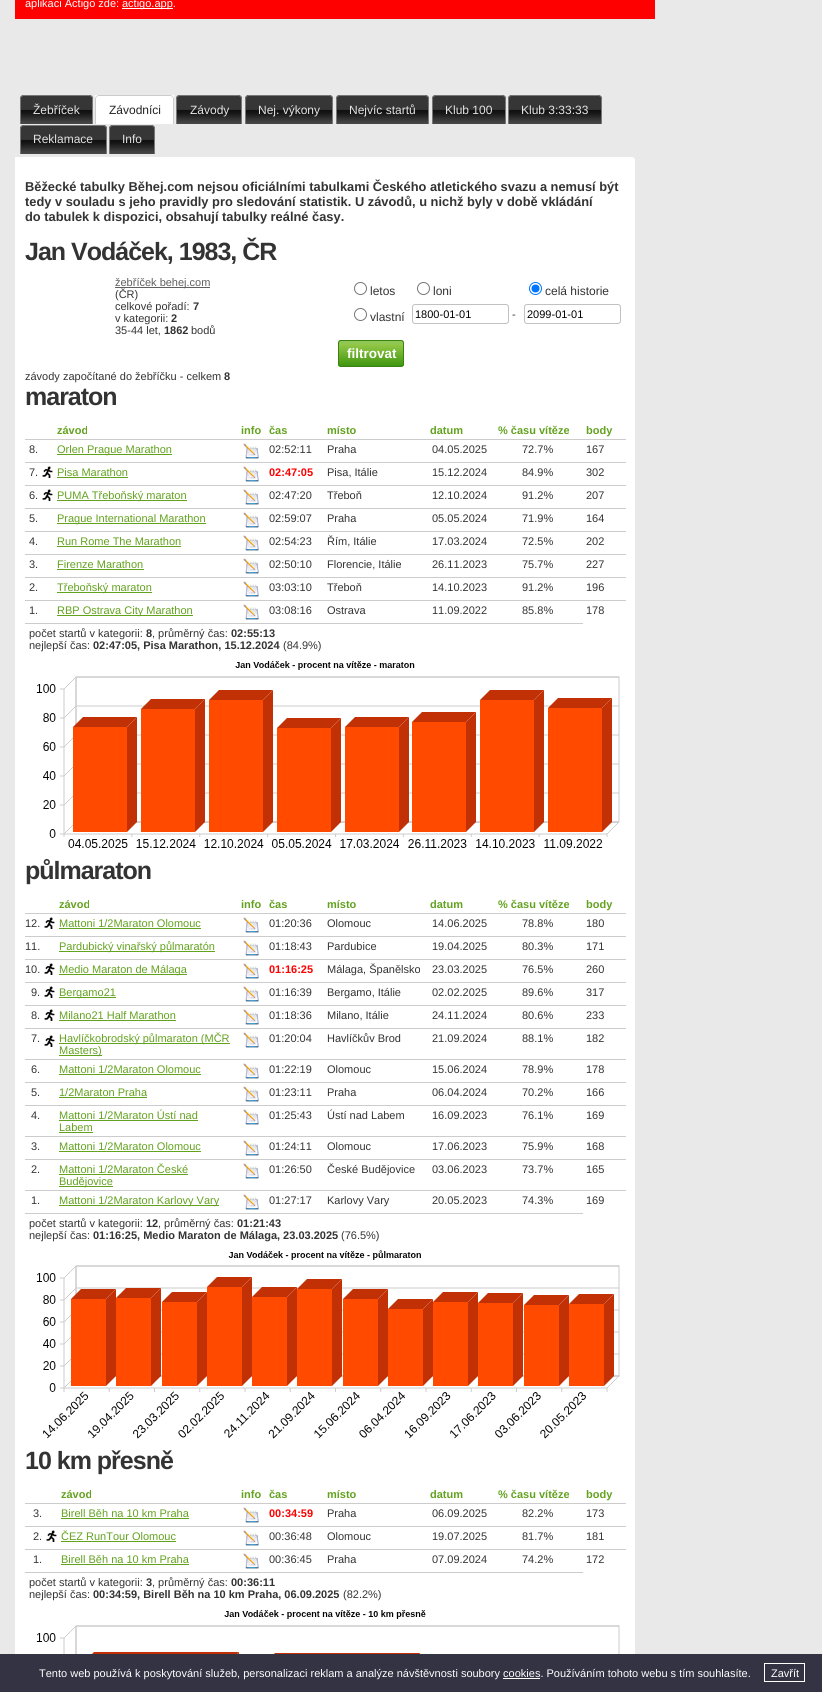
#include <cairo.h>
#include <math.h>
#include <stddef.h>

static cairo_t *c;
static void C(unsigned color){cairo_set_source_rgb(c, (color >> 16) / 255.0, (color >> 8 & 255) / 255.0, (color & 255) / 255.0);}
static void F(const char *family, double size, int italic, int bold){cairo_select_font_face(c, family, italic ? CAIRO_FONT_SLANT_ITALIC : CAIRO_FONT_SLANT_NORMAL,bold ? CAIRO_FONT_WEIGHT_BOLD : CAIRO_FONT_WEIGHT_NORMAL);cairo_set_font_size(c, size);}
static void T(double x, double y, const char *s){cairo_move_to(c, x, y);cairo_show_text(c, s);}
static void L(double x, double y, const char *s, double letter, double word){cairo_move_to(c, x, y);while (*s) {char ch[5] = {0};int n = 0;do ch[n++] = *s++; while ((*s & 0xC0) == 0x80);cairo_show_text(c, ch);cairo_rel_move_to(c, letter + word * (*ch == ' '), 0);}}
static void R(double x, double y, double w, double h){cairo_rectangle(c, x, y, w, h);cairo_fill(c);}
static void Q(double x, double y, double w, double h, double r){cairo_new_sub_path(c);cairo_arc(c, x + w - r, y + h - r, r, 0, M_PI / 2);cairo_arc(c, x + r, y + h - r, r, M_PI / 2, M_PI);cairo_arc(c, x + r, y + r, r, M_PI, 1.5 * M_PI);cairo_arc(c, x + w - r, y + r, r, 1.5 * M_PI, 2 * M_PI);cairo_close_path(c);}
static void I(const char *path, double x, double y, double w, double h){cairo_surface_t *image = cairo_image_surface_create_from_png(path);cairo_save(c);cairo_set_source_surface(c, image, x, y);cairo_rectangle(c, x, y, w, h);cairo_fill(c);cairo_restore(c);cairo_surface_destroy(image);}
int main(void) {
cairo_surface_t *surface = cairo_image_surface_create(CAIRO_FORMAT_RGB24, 822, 1692);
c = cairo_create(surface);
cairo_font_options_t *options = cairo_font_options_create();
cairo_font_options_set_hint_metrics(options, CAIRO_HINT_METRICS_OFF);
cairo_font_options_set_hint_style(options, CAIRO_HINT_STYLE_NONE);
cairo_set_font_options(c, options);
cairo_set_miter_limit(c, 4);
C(0xe9e9e9);
cairo_paint(c);
C(0xff0000);
R(15,0,640,19);
F("Liberation Sans",11,0,0);
C(0xffffff);
T(25,7,"aplikaci Actigo zde:");
R(122,8,51,1);
T(122,7,"actigo.app.");
I("1.png",20,95,73,29);
C(0x777777);
cairo_set_fill_rule(c,CAIRO_FILL_RULE_EVEN_ODD);
cairo_new_path(c);
cairo_move_to(c,24,95);
cairo_line_to(c,89,95);
cairo_curve_to(c,91,95,93,97,93,99);
cairo_line_to(c,93,124);
cairo_line_to(c,20,124);
cairo_line_to(c,20,99);
cairo_curve_to(c,20,97,22,95,24,95);
cairo_close_path(c);
cairo_move_to(c,24,96);
cairo_line_to(c,89,96);
cairo_curve_to(c,91,96,92,97,92,99);
cairo_line_to(c,92,124);
cairo_line_to(c,21,124);
cairo_line_to(c,21,99);
cairo_curve_to(c,21,97,22,96,24,96);
cairo_close_path(c);
cairo_fill(c);
F("Liberation Sans",12,0,0);
C(0xe3e3e3);
T(33,114,"Žebříček");
C(0xffffff);
R(95,95,79,29);
C(0xcccccc);
cairo_new_path(c);
cairo_move_to(c,99,95);
cairo_line_to(c,170,95);
cairo_curve_to(c,172,95,174,97,174,99);
cairo_line_to(c,174,124);
cairo_line_to(c,95,124);
cairo_line_to(c,95,99);
cairo_curve_to(c,95,97,97,95,99,95);
cairo_close_path(c);
cairo_move_to(c,99,96);
cairo_line_to(c,170,96);
cairo_curve_to(c,172,96,173,97,173,99);
cairo_line_to(c,173,124);
cairo_line_to(c,96,124);
cairo_line_to(c,96,99);
cairo_curve_to(c,96,97,97,96,99,96);
cairo_close_path(c);
cairo_fill(c);
C(0x222222);
T(109,114,"Závodníci");
I("2.png",176,95,66,29);
C(0x777777);
cairo_new_path(c);
cairo_move_to(c,180,95);
cairo_line_to(c,238,95);
cairo_curve_to(c,240,95,242,97,242,99);
cairo_line_to(c,242,124);
cairo_line_to(c,176,124);
cairo_line_to(c,176,99);
cairo_curve_to(c,176,97,178,95,180,95);
cairo_close_path(c);
cairo_move_to(c,180,96);
cairo_line_to(c,238,96);
cairo_curve_to(c,240,96,241,97,241,99);
cairo_line_to(c,241,124);
cairo_line_to(c,177,124);
cairo_line_to(c,177,99);
cairo_curve_to(c,177,97,178,96,180,96);
cairo_close_path(c);
cairo_fill(c);
C(0xe3e3e3);
T(190,114,"Závody");
I("3.png",245,95,88,29);
C(0x777777);
cairo_new_path(c);
cairo_move_to(c,249,95);
cairo_line_to(c,329,95);
cairo_curve_to(c,331,95,333,97,333,99);
cairo_line_to(c,333,124);
cairo_line_to(c,245,124);
cairo_line_to(c,245,99);
cairo_curve_to(c,245,97,247,95,249,95);
cairo_close_path(c);
cairo_move_to(c,249,96);
cairo_line_to(c,329,96);
cairo_curve_to(c,331,96,332,97,332,99);
cairo_line_to(c,332,124);
cairo_line_to(c,246,124);
cairo_line_to(c,246,99);
cairo_curve_to(c,246,97,247,96,249,96);
cairo_close_path(c);
cairo_fill(c);
C(0xe3e3e3);
T(258,114,"Nej. výkony");
I("4.png",336,95,93,29);
C(0x777777);
cairo_new_path(c);
cairo_move_to(c,340,95);
cairo_line_to(c,425,95);
cairo_curve_to(c,427,95,429,97,429,99);
cairo_line_to(c,429,124);
cairo_line_to(c,336,124);
cairo_line_to(c,336,99);
cairo_curve_to(c,336,97,338,95,340,95);
cairo_close_path(c);
cairo_move_to(c,340,96);
cairo_line_to(c,425,96);
cairo_curve_to(c,427,96,428,97,428,99);
cairo_line_to(c,428,124);
cairo_line_to(c,337,124);
cairo_line_to(c,337,99);
cairo_curve_to(c,337,97,338,96,340,96);
cairo_close_path(c);
cairo_fill(c);
C(0xe3e3e3);
T(349,114,"Nejvíc startů");
I("5.png",432,95,74,29);
C(0x777777);
cairo_new_path(c);
cairo_move_to(c,436,95);
cairo_line_to(c,502,95);
cairo_curve_to(c,504,95,506,97,506,99);
cairo_line_to(c,506,124);
cairo_line_to(c,432,124);
cairo_line_to(c,432,99);
cairo_curve_to(c,432,97,434,95,436,95);
cairo_close_path(c);
cairo_move_to(c,436,96);
cairo_line_to(c,502,96);
cairo_curve_to(c,504,96,505,97,505,99);
cairo_line_to(c,505,124);
cairo_line_to(c,433,124);
cairo_line_to(c,433,99);
cairo_curve_to(c,433,97,434,96,436,96);
cairo_close_path(c);
cairo_fill(c);
C(0xe3e3e3);
T(445,114,"Klub 100");
I("6.png",508,95,94,29);
C(0x777777);
cairo_new_path(c);
cairo_move_to(c,512,95);
cairo_line_to(c,598,95);
cairo_curve_to(c,600,95,602,97,602,99);
cairo_line_to(c,602,124);
cairo_line_to(c,508,124);
cairo_line_to(c,508,99);
cairo_curve_to(c,508,97,510,95,512,95);
cairo_close_path(c);
cairo_move_to(c,512,96);
cairo_line_to(c,598,96);
cairo_curve_to(c,600,96,601,97,601,99);
cairo_line_to(c,601,124);
cairo_line_to(c,509,124);
cairo_line_to(c,509,99);
cairo_curve_to(c,509,97,510,96,512,96);
cairo_close_path(c);
cairo_fill(c);
C(0xe3e3e3);
T(521,114,"Klub 3:33:33");
I("7.png",20,125,87,29);
C(0x777777);
cairo_new_path(c);
cairo_move_to(c,24,125);
cairo_line_to(c,103,125);
cairo_curve_to(c,105,125,107,127,107,129);
cairo_line_to(c,107,154);
cairo_line_to(c,20,154);
cairo_line_to(c,20,129);
cairo_curve_to(c,20,127,22,125,24,125);
cairo_close_path(c);
cairo_move_to(c,24,126);
cairo_line_to(c,103,126);
cairo_curve_to(c,105,126,106,127,106,129);
cairo_line_to(c,106,154);
cairo_line_to(c,21,154);
cairo_line_to(c,21,129);
cairo_curve_to(c,21,127,22,126,24,126);
cairo_close_path(c);
cairo_fill(c);
C(0xe3e3e3);
T(33,143,"Reklamace");
I("8.png",109,125,46,29);
C(0x777777);
cairo_new_path(c);
cairo_move_to(c,113,125);
cairo_line_to(c,151,125);
cairo_curve_to(c,153,125,155,127,155,129);
cairo_line_to(c,155,154);
cairo_line_to(c,109,154);
cairo_line_to(c,109,129);
cairo_curve_to(c,109,127,111,125,113,125);
cairo_close_path(c);
cairo_move_to(c,113,126);
cairo_line_to(c,151,126);
cairo_curve_to(c,153,126,154,127,154,129);
cairo_line_to(c,154,154);
cairo_line_to(c,110,154);
cairo_line_to(c,110,129);
cairo_curve_to(c,110,127,111,126,113,126);
cairo_close_path(c);
cairo_fill(c);
C(0xe3e3e3);
T(122,143,"Info");
C(0xffffff);
cairo_new_path(c);
cairo_move_to(c,15,157);
cairo_line_to(c,632,157);
cairo_curve_to(c,633.5,157,635,158.5,635,160);
cairo_line_to(c,635,1692);
cairo_curve_to(c,635,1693.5,633.5,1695,632,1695);
cairo_line_to(c,18,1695);
cairo_curve_to(c,16.5,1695,15,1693.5,15,1692);
cairo_close_path(c);
cairo_fill(c);
F("Liberation Sans",12.85,0,1);
C(0x333333);
T(25,191,"Běžecké tabulky Běhej.com nejsou oficiálními tabulkami Českého atletického svazu a nemusí být");
T(25,206,"tedy v souladu s jeho pravidly pro sledování statistik. U závodů, u nichž byly v době vkládání");
T(25,221,"do tabulek k dispozici, obsahují tabulky reálné časy.");
F("Liberation Sans",25,0,1);
L(25,260,"Jan Vodáček, 1983, ČR",-1,0);
C(0x5f5f5f);
R(115,287,95,1);
F("Liberation Sans",11,0,0);
T(115,286,"žebříček behej.com");
C(0x333333);
T(115,298,"(ČR)");
T(115,310,"celkové pořadí:");
F("Liberation Sans",11,0,1);
T(193,310,"7");
F("Liberation Sans",11,0,0);
T(115,322,"v kategorii:");
F("Liberation Sans",11,0,1);
T(171,322,"2");
F("Liberation Sans",11,0,0);
T(115,334,"35-44 let,");
F("Liberation Sans",11,0,1);
T(164,334,"1862");
F("Liberation Sans",11,0,0);
T(191,334,"bodů");
cairo_new_path(c);
cairo_arc(c,360.5,288.5,6,0,2 * M_PI);
C(0x767676);
cairo_set_line_width(c,1);
cairo_stroke(c);
F("Liberation Sans",12,0,0);
C(0x333333);
T(370,295,"letos");
cairo_new_path(c);
cairo_arc(c,423.5,288.5,6,0,2 * M_PI);
C(0x767676);
cairo_stroke(c);
C(0x333333);
T(433,295,"loni");
cairo_new_path(c);
cairo_arc(c,535.5,288.5,6,0,2 * M_PI);
C(0x0075ff);
cairo_stroke(c);
cairo_arc(c,535.5,288.5,4,0,2 * M_PI);
cairo_fill(c);
C(0x333333);
T(545,295,"celá historie");
cairo_new_path(c);
cairo_arc(c,360.5,314.5,6,0,2 * M_PI);
C(0x767676);
cairo_stroke(c);
C(0x333333);
T(370,321,"vlastní");
Q(412.5,304.5,96,19,2.5);
C(0xc1c1c1);
cairo_stroke(c);
F("Liberation Sans",11,0,0);
C(0x000000);
T(415,318,"1800-01-01");
C(0x333333);
T(512,318,"-");
Q(524.5,304.5,96,19,2.5);
C(0xc1c1c1);
cairo_stroke(c);
C(0x000000);
T(527,318,"2099-01-01");
C(0x90c653);
Q(338,340,66,27,3);
cairo_fill(c);
I("9.png",338,344,66,22);
Q(338.5,340.5,65,26,2.5);
C(0x39830e);
cairo_stroke(c);
F("Liberation Sans",13.5,0,1);
C(0xffffff);
T(347,358,"filtrovat");
F("Liberation Sans",11,0,0);
C(0x333333);
T(25,380,"závody započítané do žebříčku - celkem");
F("Liberation Sans",11,0,1);
T(224,380,"8");
F("Liberation Sans",25,0,1);
L(25,405,"maraton",-1,0);
F("Liberation Sans",11,0,1);
C(0x63a21f);
T(57,434,"závod");
T(241,434,"info");
T(269,434,"čas");
T(327,434,"místo");
T(430,434,"datum");
T(498,434,"% času vítěze");
T(586,434,"body");
F("Liberation Sans",11,0,0);
C(0x333333);
T(29,453,"8.");
C(0x63a21f);
R(57,454,115,1);
T(57,453,"Orlen Prague Marathon");
I("10.png",243,443,16,16);
C(0x333333);
T(269,453,"02:52:11");
T(327,453,"Praha");
T(432,453,"04.05.2025");
T(522,453,"72.7%");
C(0xcccccc);
R(25,439,601,1);
C(0x333333);
T(586,453,"167");
I("11.png",42,466,11,12);
T(29,476,"7.");
C(0x63a21f);
T(57,476,"Pisa Marathon");
R(57,477,71,1);
I("10.png",243,466,16,16);
F("Liberation Sans",11,0,1);
C(0xff0000);
T(269,476,"02:47:05");
F("Liberation Sans",11,0,0);
C(0x333333);
T(327,476,"Pisa, Itálie");
T(432,476,"15.12.2024");
T(522,476,"84.9%");
C(0xcccccc);
R(25,462,601,1);
C(0x333333);
T(586,476,"302");
I("11.png",42,489,11,12);
T(29,499,"6.");
C(0x63a21f);
R(57,500,130,1);
T(57,499,"PUMA Třeboňský maraton");
I("10.png",243,489,16,16);
C(0x333333);
T(269,499,"02:47:20");
T(327,499,"Třeboň");
T(432,499,"12.10.2024");
T(522,499,"91.2%");
C(0xcccccc);
R(25,485,601,1);
C(0x333333);
T(586,499,"207");
T(29,522,"5.");
C(0x63a21f);
R(57,523,149,1);
T(57,522,"Prague International Marathon");
I("10.png",243,512,16,16);
C(0x333333);
T(269,522,"02:59:07");
T(327,522,"Praha");
T(432,522,"05.05.2024");
T(522,522,"71.9%");
C(0xcccccc);
R(25,508,601,1);
C(0x333333);
T(586,522,"164");
T(29,545,"4.");
C(0x63a21f);
T(57,545,"Run Rome The Marathon");
R(57,546,124,1);
I("10.png",243,535,16,16);
C(0x333333);
T(269,545,"02:54:23");
T(327,545,"Řím, Itálie");
T(432,545,"17.03.2024");
T(522,545,"72.5%");
C(0xcccccc);
R(25,531,601,1);
C(0x333333);
T(586,545,"202");
T(29,568,"3.");
C(0x63a21f);
T(57,568,"Firenze Marathon");
R(57,569,87,1);
I("10.png",243,558,16,16);
C(0x333333);
T(269,568,"02:50:10");
T(327,568,"Florencie, Itálie");
T(432,568,"26.11.2023");
T(522,568,"75.7%");
C(0xcccccc);
R(25,554,601,1);
C(0x333333);
T(586,568,"227");
T(29,591,"2.");
C(0x63a21f);
R(57,592,95,1);
T(57,591,"Třeboňský maraton");
I("10.png",243,581,16,16);
C(0x333333);
T(269,591,"03:03:10");
T(327,591,"Třeboň");
T(432,591,"14.10.2023");
T(522,591,"91.2%");
C(0xcccccc);
R(25,577,601,1);
C(0x333333);
T(586,591,"196");
T(29,614,"1.");
C(0x63a21f);
R(57,615,136,1);
T(57,614,"RBP Ostrava City Marathon");
I("10.png",243,604,16,16);
C(0x333333);
T(269,614,"03:08:16");
T(327,614,"Ostrava");
T(432,614,"11.09.2022");
T(522,614,"85.8%");
C(0xcccccc);
R(25,600,601,1);
C(0x333333);
T(586,614,"178");
C(0xcccccc);
R(25,623,558,1);
C(0x333333);
T(29,637,"počet startů v kategorii:");
F("Liberation Sans",11,0,1);
T(146,637,"8");
F("Liberation Sans",11,0,0);
T(152,637,", průměrný čas:");
F("Liberation Sans",11,0,1);
T(231,637,"02:55:13");
F("Liberation Sans",11,0,0);
T(29,649,"nejlepší čas:");
F("Liberation Sans",11,0,1);
T(93,649,"02:47:05, Pisa Marathon, 15.12.2024");
F("Liberation Sans",11,0,0);
T(283,649,"(84.9%)");
I("12.png",36,661,584,187);
F("Liberation Sans",25,0,1);
L(25,879,"půlmaraton",-1,0);
F("Liberation Sans",11,0,1);
C(0x63a21f);
T(59,908,"závod");
T(241,908,"info");
T(269,908,"čas");
T(327,908,"místo");
T(430,908,"datum");
T(498,908,"% času vítěze");
T(586,908,"body");
I("11.png",44,917,11,12);
F("Liberation Sans",11,0,0);
C(0x333333);
T(25,927,"12.");
C(0x63a21f);
T(59,927,"Mattoni 1/2Maraton Olomouc");
R(59,928,142,1);
I("10.png",243,917,16,16);
C(0x333333);
T(269,927,"01:20:36");
T(327,927,"Olomouc");
T(432,927,"14.06.2025");
T(522,927,"78.8%");
C(0xcccccc);
R(25,913,601,1);
C(0x333333);
T(586,927,"180");
T(25,950,"11.");
C(0x63a21f);
R(59,951,156,1);
T(59,950,"Pardubický vinařský půlmaratón");
I("10.png",243,940,16,16);
C(0x333333);
T(269,950,"01:18:43");
T(327,950,"Pardubice");
T(432,950,"19.04.2025");
T(522,950,"80.3%");
C(0xcccccc);
R(25,936,601,1);
C(0x333333);
T(586,950,"171");
I("11.png",44,963,11,12);
T(25,973,"10.");
C(0x63a21f);
R(59,974,128,1);
T(59,973,"Medio Maraton de Málaga");
I("10.png",243,963,16,16);
F("Liberation Sans",11,0,1);
C(0xff0000);
T(269,973,"01:16:25");
F("Liberation Sans",11,0,0);
C(0x333333);
T(327,973,"Málaga, Španělsko");
T(432,973,"23.03.2025");
T(522,973,"76.5%");
C(0xcccccc);
R(25,959,601,1);
C(0x333333);
T(586,973,"260");
I("11.png",44,986,11,12);
T(31,996,"9.");
C(0x63a21f);
R(59,997,57,1);
T(59,996,"Bergamo21");
I("10.png",243,986,16,16);
C(0x333333);
T(269,996,"01:16:39");
T(327,996,"Bergamo, Itálie");
T(432,996,"02.02.2025");
T(522,996,"89.6%");
C(0xcccccc);
R(25,982,601,1);
C(0x333333);
T(586,996,"317");
I("11.png",44,1009,11,12);
T(31,1019,"8.");
C(0x63a21f);
T(59,1019,"Milano21 Half Marathon");
R(59,1020,117,1);
I("10.png",243,1009,16,16);
C(0x333333);
T(269,1019,"01:18:36");
T(327,1019,"Milano, Itálie");
T(432,1019,"24.11.2024");
T(522,1019,"80.6%");
C(0xcccccc);
R(25,1005,601,1);
C(0x333333);
T(586,1019,"233");
I("11.png",44,1035,11,12);
T(31,1042,"7.");
C(0x63a21f);
R(59,1043,171,1);
T(59,1042,"Havlíčkobrodský půlmaraton (MČR");
R(59,1055,43,1);
T(59,1054,"Masters)");
I("10.png",243,1032,16,16);
C(0x333333);
T(269,1042,"01:20:04");
T(327,1042,"Havlíčkův Brod");
T(432,1042,"21.09.2024");
T(522,1042,"88.1%");
C(0xcccccc);
R(25,1028,601,1);
C(0x333333);
T(586,1042,"182");
T(31,1073,"6.");
C(0x63a21f);
T(59,1073,"Mattoni 1/2Maraton Olomouc");
R(59,1074,142,1);
I("10.png",243,1063,16,16);
C(0x333333);
T(269,1073,"01:22:19");
T(327,1073,"Olomouc");
T(432,1073,"15.06.2024");
T(522,1073,"78.9%");
C(0xcccccc);
R(25,1059,601,1);
C(0x333333);
T(586,1073,"178");
T(31,1096,"5.");
C(0x63a21f);
T(59,1096,"1/2Maraton Praha");
R(59,1097,88,1);
I("10.png",243,1086,16,16);
C(0x333333);
T(269,1096,"01:23:11");
T(327,1096,"Praha");
T(432,1096,"06.04.2024");
T(522,1096,"70.2%");
C(0xcccccc);
R(25,1082,601,1);
C(0x333333);
T(586,1096,"166");
T(31,1119,"4.");
C(0x63a21f);
T(59,1119,"Mattoni 1/2Maraton Ústí nad");
R(59,1120,139,1);
T(59,1131,"Labem");
R(59,1132,34,1);
I("10.png",243,1109,16,16);
C(0x333333);
T(269,1119,"01:25:43");
T(327,1119,"Ústí nad Labem");
T(432,1119,"16.09.2023");
T(522,1119,"76.1%");
C(0xcccccc);
R(25,1105,601,1);
C(0x333333);
T(586,1119,"169");
T(31,1150,"3.");
C(0x63a21f);
T(59,1150,"Mattoni 1/2Maraton Olomouc");
R(59,1151,142,1);
I("10.png",243,1140,16,16);
C(0x333333);
T(269,1150,"01:24:11");
T(327,1150,"Olomouc");
T(432,1150,"17.06.2023");
T(522,1150,"75.9%");
C(0xcccccc);
R(25,1136,601,1);
C(0x333333);
T(586,1150,"168");
T(31,1173,"2.");
C(0x63a21f);
T(59,1173,"Mattoni 1/2Maraton České");
R(59,1174,129,1);
R(59,1186,54,1);
T(59,1185,"Budějovice");
I("10.png",243,1163,16,16);
C(0x333333);
T(269,1173,"01:26:50");
T(327,1173,"České Budějovice");
T(432,1173,"03.06.2023");
T(522,1173,"73.7%");
C(0xcccccc);
R(25,1159,601,1);
C(0x333333);
T(586,1173,"165");
T(31,1204,"1.");
C(0x63a21f);
R(59,1205,160,1);
T(59,1204,"Mattoni 1/2Maraton Karlovy Vary");
I("10.png",243,1194,16,16);
C(0x333333);
T(269,1204,"01:27:17");
T(327,1204,"Karlovy Vary");
T(432,1204,"20.05.2023");
T(522,1204,"74.3%");
C(0xcccccc);
R(25,1190,601,1);
C(0x333333);
T(586,1204,"169");
C(0xcccccc);
R(25,1213,558,1);
C(0x333333);
T(29,1227,"počet startů v kategorii:");
F("Liberation Sans",11,0,1);
T(146,1227,"12");
F("Liberation Sans",11,0,0);
T(158,1227,", průměrný čas:");
F("Liberation Sans",11,0,1);
T(237,1227,"01:21:43");
F("Liberation Sans",11,0,0);
T(29,1239,"nejlepší čas:");
F("Liberation Sans",11,0,1);
T(93,1239,"01:16:25, Medio Maraton de Málaga, 23.03.2025");
F("Liberation Sans",11,0,0);
T(341,1239,"(76.5%)");
I("13.png",36,1250,584,189);
F("Liberation Sans",25,0,1);
L(25,1469,"10 km přesně",-1,0);
F("Liberation Sans",11,0,1);
C(0x63a21f);
T(61,1498,"závod");
T(241,1498,"info");
T(269,1498,"čas");
T(327,1498,"místo");
T(430,1498,"datum");
T(498,1498,"% času vítěze");
T(586,1498,"body");
F("Liberation Sans",11,0,0);
C(0x333333);
T(33,1517,"3.");
C(0x63a21f);
T(61,1517,"Birell Běh na 10 km Praha");
R(61,1518,128,1);
I("10.png",243,1507,16,16);
F("Liberation Sans",11,0,1);
C(0xff0000);
T(269,1517,"00:34:59");
F("Liberation Sans",11,0,0);
C(0x333333);
T(327,1517,"Praha");
T(432,1517,"06.09.2025");
T(522,1517,"82.2%");
C(0xcccccc);
R(25,1503,601,1);
C(0x333333);
T(586,1517,"173");
I("11.png",46,1530,11,12);
T(33,1540,"2.");
C(0x63a21f);
T(61,1540,"ČEZ RunTour Olomouc");
R(61,1541,115,1);
I("10.png",243,1530,16,16);
C(0x333333);
T(269,1540,"00:36:48");
T(327,1540,"Olomouc");
T(432,1540,"19.07.2025");
T(522,1540,"81.7%");
C(0xcccccc);
R(25,1526,601,1);
C(0x333333);
T(586,1540,"181");
T(33,1563,"1.");
C(0x63a21f);
T(61,1563,"Birell Běh na 10 km Praha");
R(61,1564,128,1);
I("10.png",243,1553,16,16);
C(0x333333);
T(269,1563,"00:36:45");
T(327,1563,"Praha");
T(432,1563,"07.09.2024");
T(522,1563,"74.2%");
C(0xcccccc);
R(25,1549,601,1);
C(0x333333);
T(586,1563,"172");
C(0xcccccc);
R(25,1572,558,1);
C(0x333333);
T(29,1586,"počet startů v kategorii:");
F("Liberation Sans",11,0,1);
T(146,1586,"3");
F("Liberation Sans",11,0,0);
T(152,1586,", průměrný čas:");
F("Liberation Sans",11,0,1);
T(231,1586,"00:36:11");
F("Liberation Sans",11,0,0);
T(29,1598,"nejlepší čas:");
F("Liberation Sans",11,0,1);
T(93,1598,"00:34:59, Birell Běh na 10 km Praha, 06.09.2025");
F("Liberation Sans",11,0,0);
T(343,1598,"(82.2%)");
I("14.png",36,1610,584,44);
C(0x333344);
R(0,1654,822,38);
C(0xffffff);
T(39,1677,"Tento web používá k poskytování služeb, personalizaci reklam a analýze návštěvnosti soubory cookies. Používáním tohoto webu s tím souhlasíte.");
cairo_rectangle(c,764.5,1663.5,40,18);
cairo_stroke(c);
T(771,1677,"Zavřít");
R(503,1678,37,1);
cairo_surface_write_to_png(surface, "o.png");
cairo_font_options_destroy(options);
cairo_destroy(c);
cairo_surface_destroy(surface);
return 0;
}
